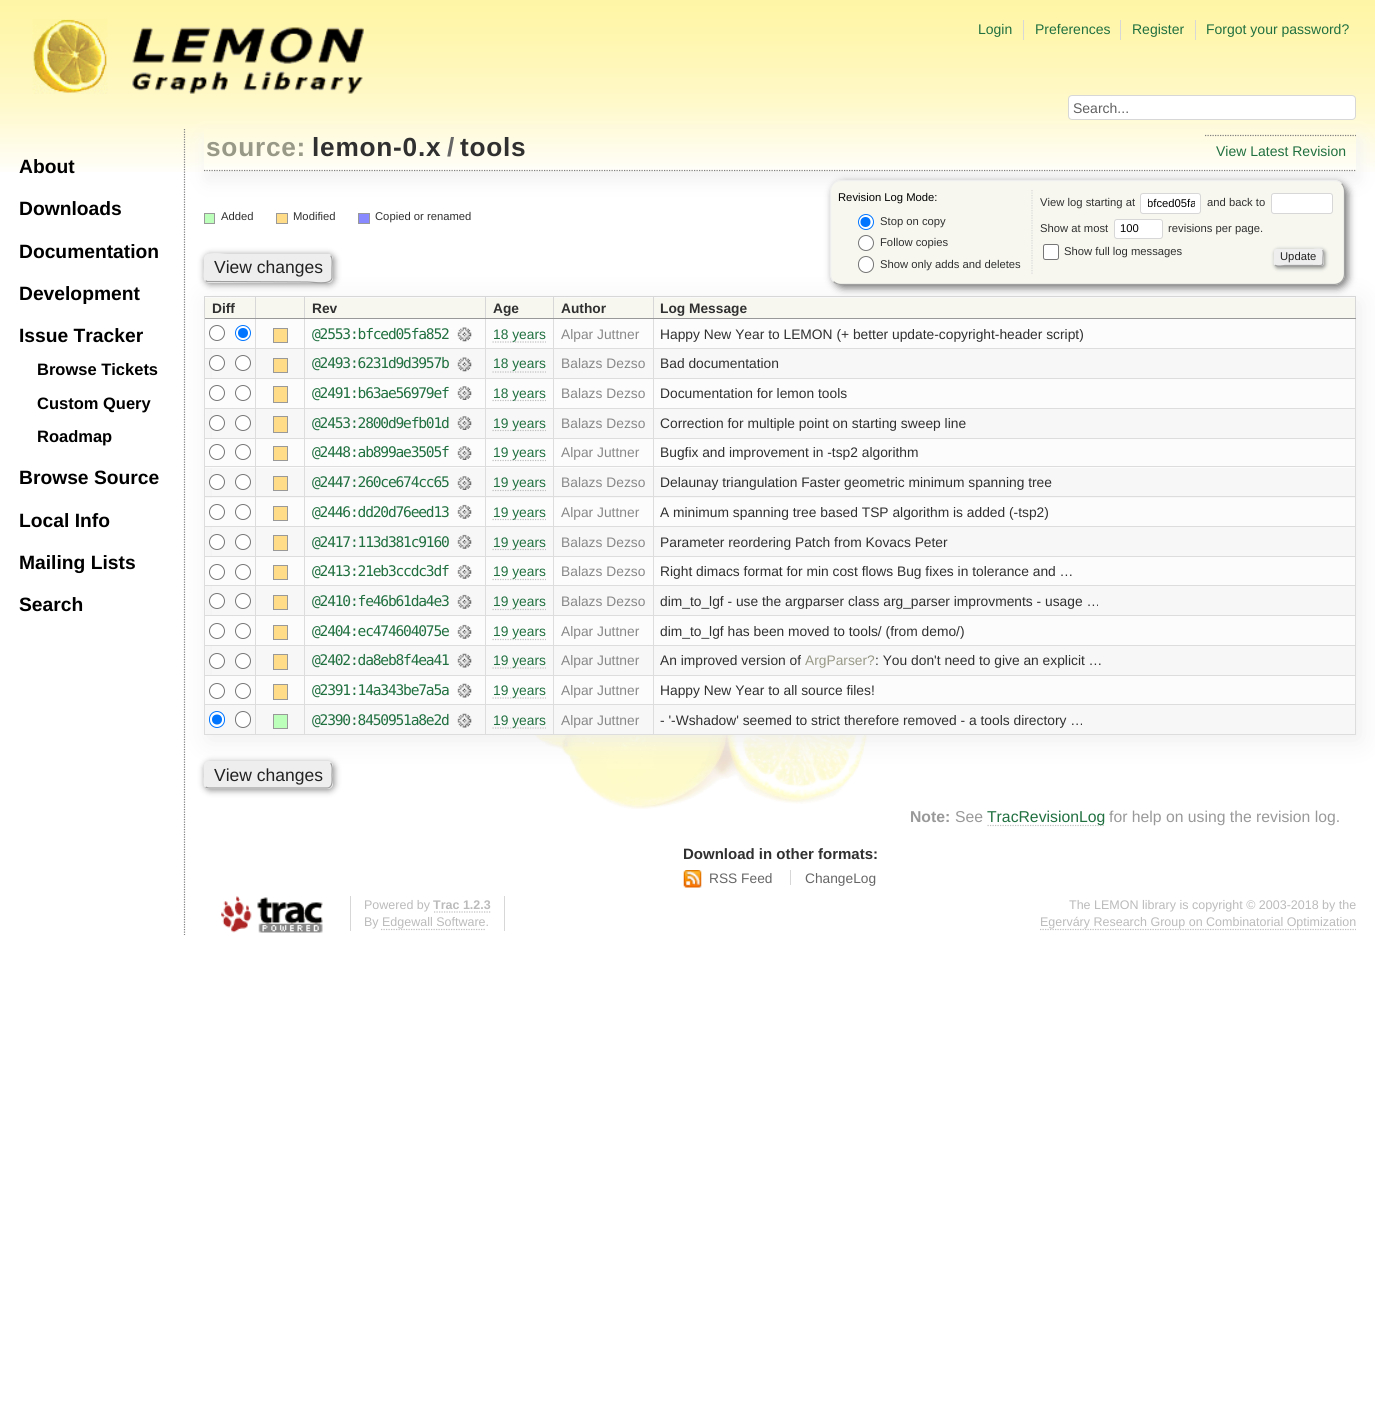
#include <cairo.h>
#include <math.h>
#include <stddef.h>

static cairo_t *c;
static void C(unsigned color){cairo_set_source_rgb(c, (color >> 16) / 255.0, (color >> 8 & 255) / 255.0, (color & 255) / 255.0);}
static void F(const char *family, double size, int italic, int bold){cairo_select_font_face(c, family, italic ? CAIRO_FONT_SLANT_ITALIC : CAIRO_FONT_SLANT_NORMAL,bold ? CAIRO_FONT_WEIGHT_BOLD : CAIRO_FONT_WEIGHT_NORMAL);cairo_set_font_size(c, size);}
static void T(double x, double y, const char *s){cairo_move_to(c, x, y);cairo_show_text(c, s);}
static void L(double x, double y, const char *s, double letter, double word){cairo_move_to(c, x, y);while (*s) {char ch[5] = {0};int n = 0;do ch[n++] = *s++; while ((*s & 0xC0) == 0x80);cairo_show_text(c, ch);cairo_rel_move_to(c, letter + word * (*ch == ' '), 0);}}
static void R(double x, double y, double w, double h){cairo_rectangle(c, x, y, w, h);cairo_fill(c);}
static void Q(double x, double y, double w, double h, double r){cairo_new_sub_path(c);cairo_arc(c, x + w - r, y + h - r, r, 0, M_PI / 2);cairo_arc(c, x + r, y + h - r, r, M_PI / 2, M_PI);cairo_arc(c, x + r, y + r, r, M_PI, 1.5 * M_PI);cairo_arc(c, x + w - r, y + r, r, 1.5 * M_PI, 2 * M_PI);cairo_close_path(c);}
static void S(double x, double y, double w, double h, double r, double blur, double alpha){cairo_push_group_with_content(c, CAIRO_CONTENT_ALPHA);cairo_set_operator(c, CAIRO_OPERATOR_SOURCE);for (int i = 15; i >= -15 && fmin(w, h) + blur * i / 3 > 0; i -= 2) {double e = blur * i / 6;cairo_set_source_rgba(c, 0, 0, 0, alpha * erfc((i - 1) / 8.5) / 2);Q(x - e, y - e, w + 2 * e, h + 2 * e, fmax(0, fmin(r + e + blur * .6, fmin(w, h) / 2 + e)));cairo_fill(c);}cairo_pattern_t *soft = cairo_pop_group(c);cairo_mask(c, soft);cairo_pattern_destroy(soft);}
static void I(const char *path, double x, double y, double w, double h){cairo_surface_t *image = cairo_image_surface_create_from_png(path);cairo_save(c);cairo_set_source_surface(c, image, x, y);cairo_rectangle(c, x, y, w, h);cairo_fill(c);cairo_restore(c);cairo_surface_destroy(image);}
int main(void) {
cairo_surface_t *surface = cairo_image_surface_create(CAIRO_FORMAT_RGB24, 1375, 1412);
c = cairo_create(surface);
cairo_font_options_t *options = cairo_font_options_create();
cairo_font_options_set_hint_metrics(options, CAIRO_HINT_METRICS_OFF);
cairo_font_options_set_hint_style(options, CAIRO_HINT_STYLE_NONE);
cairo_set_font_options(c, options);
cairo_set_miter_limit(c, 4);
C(0xffffff);
cairo_paint(c);
I("1.png",0,0,1375,172);
I("2.png",32,19,76,75);
I("3.png",509,735,359,74);
cairo_new_path(c);
cairo_move_to(c,184.5,129);
cairo_line_to(c,184.5,935);
C(0x808080);
cairo_set_line_width(c,1.2);
cairo_set_dash(c,(double[]){1.25,1.25},2,0);
cairo_stroke(c);
C(0xd7d7d7);
R(1023,20,1,20);
F("Liberation Sans",14,0,0);
C(0x207040);
T(978,34,"Login");
C(0xd7d7d7);
R(1120,20,1,20);
C(0x207040);
T(1035,34,"Preferences");
C(0xd7d7d7);
R(1195,20,1,20);
C(0x207040);
T(1132,34,"Register");
T(1206,34,"Forgot your password?");
C(0xffffff);
Q(1068.5,95.5,287,24,3.5);
cairo_fill_preserve(c);
C(0xd7d7d7);
cairo_set_line_width(c,1);
cairo_set_dash(c,NULL,0,0);
cairo_stroke(c);
cairo_save(c);
cairo_set_fill_rule(c,CAIRO_FILL_RULE_EVEN_ODD);
cairo_new_path(c);
cairo_move_to(c,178,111);
cairo_line_to(c,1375,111);
cairo_line_to(c,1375,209);
cairo_line_to(c,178,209);
cairo_close_path(c);
cairo_move_to(c,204,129);
cairo_line_to(c,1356,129);
cairo_line_to(c,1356,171);
cairo_line_to(c,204,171);
cairo_close_path(c);
cairo_clip(c);
C(0xf2f2f2);
S(206,139,1153,42,0,9,1);
cairo_restore(c);
cairo_new_path(c);
cairo_move_to(c,204,170.5);
cairo_line_to(c,1356,170.5);
C(0x808080);
cairo_set_line_width(c,1.2);
cairo_set_dash(c,(double[]){1.25,1.25},2,0);
cairo_stroke(c);
F("Liberation Sans",26.25,0,1);
C(0x999988);
L(206,156,"source:",.75,0);
C(0x303030);
L(312,156,"lemon-0.x",.75,0);
C(0x666666);
L(447,156,"/",.75,0);
C(0x303030);
L(460,156,"tools",.75,0);
C(0xbbffbb);
cairo_rectangle(c,204.5,213.5,10,10);
cairo_fill_preserve(c);
C(0x999999);
cairo_set_line_width(c,1);
cairo_set_dash(c,NULL,0,0);
cairo_stroke(c);
F("Liberation Sans",11.25,0,0);
C(0x303030);
T(221,220,"Added");
C(0xffdd88);
cairo_rectangle(c,276.5,213.5,11,10);
cairo_fill_preserve(c);
C(0x999999);
cairo_stroke(c);
C(0x303030);
T(293,220,"Modified");
C(0x8888ff);
cairo_rectangle(c,358.5,213.5,11,10);
cairo_fill_preserve(c);
C(0x999999);
cairo_stroke(c);
C(0x303030);
T(375,220,"Copied or renamed");
C(0xeeeeee);
S(208,301,1152,439,0,13,1);
C(0xf7f7f0);
R(205,298,1150,20);
C(0xd7d7d7);
R(653,296,703,1);
C(0xdddddd);
R(204,348,1152,1);
R(204,378,1152,1);
R(204,408,1152,1);
R(204,438,1152,1);
C(0xfcfcfc);
R(205,439,1150,29);
C(0xdddddd);
R(204,466,1152,1);
C(0xf7f7f7);
R(212,468,1143,30);
C(0xdddddd);
R(204,496,1152,1);
R(204,526,1152,1);
R(204,556,1152,1);
R(204,585,1152,1);
R(204,615,1152,1);
R(204,645,1152,1);
R(204,675,1152,1);
R(204,704,1152,1);
R(1355,318,1,417);
C(0xd7d7d7);
R(1355,296,1,23);
C(0x777777);
S(833,183,515,105,11,4,1);
C(0xf7f7f0);
Q(830,180,515,105,11);
cairo_fill(c);
cairo_new_path(c);
cairo_move_to(c,1341.5,183.5);
cairo_curve_to(c,1343.5,185.5,1344.5,188.5,1344.5,191);
cairo_line_to(c,1344.5,274);
cairo_curve_to(c,1344.5,276.5,1343.5,279.5,1341.5,281.5);
cairo_curve_to(c,1339.5,283.5,1336.5,284.5,1334,284.5);
cairo_line_to(c,841,284.5);
cairo_curve_to(c,838.5,284.5,835.5,283.5,833.5,281.5);
C(0x9f9f9f);
cairo_set_line_width(c,1.2);
cairo_stroke(c);
cairo_new_path(c);
cairo_move_to(c,833.5,281.5);
cairo_curve_to(c,831.5,279.5,830.5,276.5,830.5,274);
cairo_line_to(c,830.5,191);
cairo_curve_to(c,830.5,188.5,831.5,185.5,833.5,183.5);
cairo_curve_to(c,835.5,181.5,838.5,180.5,841,180.5);
cairo_line_to(c,1334,180.5);
cairo_curve_to(c,1336.5,180.5,1339.5,181.5,1341.5,183.5);
C(0xeeeeee);
cairo_stroke(c);
cairo_new_path(c);
cairo_move_to(c,1032,190);
cairo_line_to(c,1032,275);
C(0xd7d7d7);
cairo_set_dash(c,(double[]){1.25,1.25},2,0);
cairo_stroke(c);
C(0x000000);
T(838,201,"Revision Log Mode:");
C(0xffffff);
cairo_new_path(c);
cairo_arc(c,866,222,7.5,0,2 * M_PI);
cairo_fill_preserve(c);
C(0x0075ff);
cairo_set_line_width(c,1);
cairo_set_dash(c,NULL,0,0);
cairo_stroke(c);
cairo_arc(c,865.5,222,5,0,2 * M_PI);
cairo_fill(c);
C(0x303030);
T(880,225,"Stop on copy");
C(0xffffff);
cairo_new_path(c);
cairo_arc(c,866,243,7.5,0,2 * M_PI);
cairo_fill_preserve(c);
C(0x767676);
cairo_stroke(c);
C(0x303030);
T(880,246,"Follow copies");
C(0xffffff);
Q(858.5,256.5,15,16,7.5);
cairo_fill_preserve(c);
C(0x767676);
cairo_stroke(c);
C(0x303030);
T(880,268,"Show only adds and deletes");
T(1040,206,"View log starting at");
C(0xffffff);
Q(1140.5,193.5,60,20,2.5);
cairo_fill_preserve(c);
C(0xd7d7d7);
cairo_stroke(c);
cairo_save(c);
cairo_rectangle(c,1148,196,47,13);
cairo_clip(c);
C(0x000000);
T(1147,207,"bfced05fa");
cairo_restore(c);
C(0x303030);
T(1207,206,"and back to");
C(0xffffff);
Q(1271.5,193.5,61,20,2.5);
cairo_fill_preserve(c);
C(0xd7d7d7);
cairo_stroke(c);
C(0x303030);
T(1040,232,"Show at most");
C(0xffffff);
Q(1114.5,219.5,48,19,2.5);
cairo_fill_preserve(c);
C(0xd7d7d7);
cairo_stroke(c);
C(0x000000);
T(1120,232,"100");
C(0x303030);
T(1168,232,"revisions per page.");
C(0xffffff);
Q(1043.5,244.5,15,15,2);
cairo_fill_preserve(c);
C(0x767676);
cairo_stroke(c);
C(0x303030);
T(1064,255,"Show full log messages");
C(0x888888);
S(1275,250,50,18,3,2,1);
C(0xeeeeee);
Q(1274,249,50,17,3);
cairo_fill(c);
cairo_new_path(c);
cairo_move_to(c,1322.5,250);
cairo_curve_to(c,1324,252,1323,255.5,1323,257.5);
cairo_curve_to(c,1323,267,1323.5,265.5,1313,265.5);
cairo_line_to(c,1284.5,265.5);
cairo_curve_to(c,1284,265.5,1277,267,1275,265);
C(0x9f9f9f);
cairo_set_line_width(c,1.2);
cairo_stroke(c);
cairo_new_path(c);
cairo_move_to(c,1275,265);
cairo_curve_to(c,1273.5,263,1274.5,259.5,1274.5,257.5);
cairo_curve_to(c,1274.5,248,1274,249.5,1284.5,249.5);
cairo_line_to(c,1313,249.5);
cairo_curve_to(c,1313.5,249.5,1320.5,248,1322.5,250);
C(0xeeeeee);
cairo_stroke(c);
C(0x222222);
T(1280,260,"Update");
C(0x888888);
S(205,255,129,29,5,3.5,1);
C(0xeeeeee);
Q(204,254,129,29,5);
cairo_fill(c);
cairo_new_path(c);
cairo_move_to(c,330.5,255.5);
cairo_curve_to(c,333,258.5,332,265,332,268);
cairo_line_to(c,332,278);
cairo_curve_to(c,330.5,285.5,314,282,307.5,282);
cairo_line_to(c,207,281.5);
cairo_line_to(c,205.5,280.5);
C(0x9f9f9f);
cairo_stroke(c);
cairo_new_path(c);
cairo_move_to(c,205.5,280.5);
cairo_curve_to(c,203,278,204.5,271.5,204.5,268);
cairo_line_to(c,204.5,258);
cairo_curve_to(c,206,251,222.5,254.5,228.5,254.5);
cairo_line_to(c,329,254.5);
cairo_line_to(c,330.5,255.5);
C(0xeeeeee);
cairo_stroke(c);
F("Liberation Sans",17.5,0,0);
C(0x222222);
T(214,273,"View changes");
C(0xfcfcfc);
R(205,319,1150,29);
C(0xf7f7f7);
R(212,349,1143,29);
C(0xfcfcfc);
R(205,379,1150,29);
C(0xf7f7f7);
R(212,409,1143,29);
C(0xfcfcfc);
R(205,498,1150,28);
C(0xf7f7f7);
R(212,527,1143,29);
C(0xfcfcfc);
R(205,557,1150,28);
C(0xf7f7f7);
R(212,586,1143,29);
C(0xfcfcfc);
R(205,616,1150,29);
C(0xf7f7f7);
R(212,646,1143,29);
C(0xfcfcfc);
R(205,676,1150,28);
C(0xf7f7f7);
R(205,705,1150,29);
C(0xdddddd);
R(653,734,703,1);
R(653,318,1,417);
C(0x999999);
R(653,318,703,1);
C(0xd7d7d7);
R(653,296,1,23);
R(553,296,101,1);
C(0xdddddd);
R(553,734,101,1);
R(553,318,1,417);
C(0x999999);
R(553,318,101,1);
C(0xd7d7d7);
R(553,296,1,23);
R(485,296,69,1);
C(0xdddddd);
R(485,734,69,1);
R(485,318,1,417);
C(0x999999);
R(485,318,69,1);
C(0xd7d7d7);
R(485,296,1,23);
R(304,296,182,1);
C(0xdddddd);
R(304,734,182,1);
R(304,318,1,417);
C(0x999999);
R(304,318,182,1);
C(0xd7d7d7);
R(304,296,1,23);
R(255,296,50,1);
C(0xdddddd);
R(255,734,50,1);
R(255,318,1,417);
C(0x999999);
R(255,318,50,1);
C(0xd7d7d7);
R(255,296,1,23);
R(204,296,52,1);
C(0xdddddd);
R(204,734,52,1);
R(204,318,1,417);
C(0x999999);
R(204,318,52,1);
C(0xd7d7d7);
R(204,296,1,23);
F("Liberation Sans",13.75,0,1);
C(0x303030);
T(212,313,"Diff");
T(312,313,"Rev");
T(493,313,"Age");
T(561,313,"Author");
T(660,313,"Log Message");
C(0xffffff);
cairo_new_path(c);
cairo_arc(c,217,333,7.5,0,2 * M_PI);
cairo_fill_preserve(c);
C(0x767676);
cairo_set_line_width(c,1);
cairo_stroke(c);
C(0xffffff);
cairo_arc(c,243,333,7.5,0,2 * M_PI);
cairo_fill_preserve(c);
C(0x0075ff);
cairo_stroke(c);
cairo_arc(c,243,333,5,0,2 * M_PI);
cairo_fill(c);
C(0xffdd88);
cairo_rectangle(c,273.5,328.5,14,14);
cairo_fill_preserve(c);
C(0x999999);
cairo_stroke(c);
F("DejaVu Sans Mono",14.6,0,0);
C(0x207040);
L(312,339,"@2553:bfced05fa852",-1.2,0);
I("4.png",457,327,15,15);
cairo_new_path(c);
cairo_move_to(c,492.5,342);
cairo_line_to(c,546,342);
C(0xc0c0c0);
cairo_set_line_width(c,1.2);
cairo_set_dash(c,(double[]){1.25,1.25},2,0);
cairo_stroke(c);
F("Liberation Sans",13.8,0,0);
C(0x207040);
T(493,339,"18 years");
C(0x888888);
T(561,339,"Alpar Juttner");
C(0x303030);
T(660,339,"Happy New Year to LEMON (+ better update-copyright-header script)");
C(0xffffff);
cairo_new_path(c);
cairo_arc(c,217,363,7.5,0,2 * M_PI);
cairo_fill_preserve(c);
C(0x767676);
cairo_set_line_width(c,1);
cairo_set_dash(c,NULL,0,0);
cairo_stroke(c);
C(0xffffff);
cairo_arc(c,243,363,7.5,0,2 * M_PI);
cairo_fill_preserve(c);
C(0x767676);
cairo_stroke(c);
C(0xffdd88);
cairo_rectangle(c,273.5,358.5,14,14);
cairo_fill_preserve(c);
C(0x999999);
cairo_stroke(c);
F("DejaVu Sans Mono",14.6,0,0);
C(0x207040);
L(312,368,"@2493:6231d9d3957b",-1.2,0);
I("5.png",457,357,15,15);
F("Liberation Sans",13.8,0,0);
T(493,368,"18 years");
cairo_new_path(c);
cairo_move_to(c,492.5,372);
cairo_line_to(c,546,372);
C(0xc0c0c0);
cairo_set_line_width(c,1.2);
cairo_set_dash(c,(double[]){1.25,1.25},2,0);
cairo_stroke(c);
C(0x888888);
T(561,368,"Balazs Dezso");
C(0x303030);
T(660,368,"Bad documentation");
C(0xffffff);
cairo_new_path(c);
cairo_arc(c,217,393,7.5,0,2 * M_PI);
cairo_fill_preserve(c);
C(0x767676);
cairo_set_line_width(c,1);
cairo_set_dash(c,NULL,0,0);
cairo_stroke(c);
C(0xffffff);
cairo_arc(c,243,393,7.5,0,2 * M_PI);
cairo_fill_preserve(c);
C(0x767676);
cairo_stroke(c);
C(0xffdd88);
cairo_rectangle(c,273.5,386.5,14,16);
cairo_fill_preserve(c);
C(0x999999);
cairo_stroke(c);
F("DejaVu Sans Mono",14.6,0,0);
C(0x207040);
L(312,398,"@2491:b63ae56979ef",-1.2,0);
I("6.png",457,386,15,14);
cairo_new_path(c);
cairo_move_to(c,492.5,400.5);
cairo_line_to(c,546,400.5);
C(0xc0c0c0);
cairo_set_line_width(c,1.2);
cairo_set_dash(c,(double[]){1.25,1.25},2,0);
cairo_stroke(c);
F("Liberation Sans",13.8,0,0);
C(0x207040);
T(493,398,"18 years");
C(0x888888);
T(561,398,"Balazs Dezso");
C(0x303030);
T(660,398,"Documentation for lemon tools");
C(0xffffff);
cairo_new_path(c);
cairo_arc(c,217,423,7.5,0,2 * M_PI);
cairo_fill_preserve(c);
C(0x767676);
cairo_set_line_width(c,1);
cairo_set_dash(c,NULL,0,0);
cairo_stroke(c);
C(0xffffff);
cairo_arc(c,243,423,7.5,0,2 * M_PI);
cairo_fill_preserve(c);
C(0x767676);
cairo_stroke(c);
C(0xffdd88);
cairo_rectangle(c,273.5,416.5,14,16);
cairo_fill_preserve(c);
C(0x999999);
cairo_stroke(c);
F("DejaVu Sans Mono",14.6,0,0);
C(0x207040);
L(312,428,"@2453:2800d9efb01d",-1.2,0);
I("7.png",457,416,15,14);
cairo_new_path(c);
cairo_move_to(c,492.5,430.5);
cairo_line_to(c,546,430.5);
C(0xc0c0c0);
cairo_set_line_width(c,1.2);
cairo_set_dash(c,(double[]){1.25,1.25},2,0);
cairo_stroke(c);
F("Liberation Sans",13.8,0,0);
C(0x207040);
T(493,428,"19 years");
C(0x888888);
T(561,428,"Balazs Dezso");
C(0x303030);
T(660,428,"Correction for multiple point on starting sweep line");
C(0xffffff);
cairo_new_path(c);
cairo_arc(c,217,452,7.5,0,2 * M_PI);
cairo_fill_preserve(c);
C(0x767676);
cairo_set_line_width(c,1);
cairo_set_dash(c,NULL,0,0);
cairo_stroke(c);
C(0xffffff);
cairo_arc(c,243,452,7.5,0,2 * M_PI);
cairo_fill_preserve(c);
C(0x767676);
cairo_stroke(c);
C(0xffdd88);
cairo_rectangle(c,273.5,446.5,14,14);
cairo_fill_preserve(c);
C(0x999999);
cairo_stroke(c);
F("DejaVu Sans Mono",14.6,0,0);
C(0x207040);
L(312,457,"@2448:ab899ae3505f",-1.2,0);
I("6.png",457,446,15,14);
cairo_new_path(c);
cairo_move_to(c,492.5,460.5);
cairo_line_to(c,546,460.5);
C(0xc0c0c0);
cairo_set_line_width(c,1.2);
cairo_set_dash(c,(double[]){1.25,1.25},2,0);
cairo_stroke(c);
F("Liberation Sans",13.8,0,0);
C(0x207040);
T(493,457,"19 years");
C(0x888888);
T(561,457,"Alpar Juttner");
C(0x303030);
T(660,457,"Bugfix and improvement in -tsp2 algorithm");
C(0xffffff);
cairo_new_path(c);
cairo_arc(c,217,482,7.5,0,2 * M_PI);
cairo_fill_preserve(c);
C(0x767676);
cairo_set_line_width(c,1);
cairo_set_dash(c,NULL,0,0);
cairo_stroke(c);
C(0xffffff);
cairo_arc(c,243,482,7.5,0,2 * M_PI);
cairo_fill_preserve(c);
C(0x767676);
cairo_stroke(c);
C(0xffdd88);
cairo_rectangle(c,273.5,476.5,14,14);
cairo_fill_preserve(c);
C(0x999999);
cairo_stroke(c);
F("DejaVu Sans Mono",14.6,0,0);
C(0x207040);
L(312,487,"@2447:260ce674cc65",-1.2,0);
I("7.png",457,476,15,14);
cairo_new_path(c);
cairo_move_to(c,492.5,490.5);
cairo_line_to(c,546,490.5);
C(0xc0c0c0);
cairo_set_line_width(c,1.2);
cairo_set_dash(c,(double[]){1.25,1.25},2,0);
cairo_stroke(c);
F("Liberation Sans",13.8,0,0);
C(0x207040);
T(493,487,"19 years");
C(0x888888);
T(561,487,"Balazs Dezso");
C(0x303030);
T(660,487,"Delaunay triangulation Faster geometric minimum spanning tree");
C(0xffffff);
cairo_new_path(c);
cairo_arc(c,217,512,7.5,0,2 * M_PI);
cairo_fill_preserve(c);
C(0x767676);
cairo_set_line_width(c,1);
cairo_set_dash(c,NULL,0,0);
cairo_stroke(c);
C(0xffffff);
cairo_arc(c,243,512,7.5,0,2 * M_PI);
cairo_fill_preserve(c);
C(0x767676);
cairo_stroke(c);
C(0xffdd88);
cairo_rectangle(c,273.5,506.5,14,14);
cairo_fill_preserve(c);
C(0x999999);
cairo_stroke(c);
F("DejaVu Sans Mono",14.6,0,0);
C(0x207040);
L(312,517,"@2446:dd20d76eed13",-1.2,0);
I("8.png",457,504,15,15);
cairo_new_path(c);
cairo_move_to(c,492.5,519.5);
cairo_line_to(c,546,519.5);
C(0xc0c0c0);
cairo_set_line_width(c,1.2);
cairo_set_dash(c,(double[]){1.25,1.25},2,0);
cairo_stroke(c);
F("Liberation Sans",13.8,0,0);
C(0x207040);
T(493,517,"19 years");
C(0x888888);
T(561,517,"Alpar Juttner");
C(0x303030);
T(660,517,"A minimum spanning tree based TSP algorithm is added (-tsp2)");
C(0xffffff);
cairo_new_path(c);
cairo_arc(c,217,542,7.5,0,2 * M_PI);
cairo_fill_preserve(c);
C(0x767676);
cairo_set_line_width(c,1);
cairo_set_dash(c,NULL,0,0);
cairo_stroke(c);
C(0xffffff);
cairo_arc(c,243,542,7.5,0,2 * M_PI);
cairo_fill_preserve(c);
C(0x767676);
cairo_stroke(c);
C(0xffdd88);
cairo_rectangle(c,273.5,535.5,14,15);
cairo_fill_preserve(c);
C(0x999999);
cairo_stroke(c);
F("DejaVu Sans Mono",14.6,0,0);
C(0x207040);
L(312,547,"@2417:113d381c9160",-1.2,0);
I("9.png",457,534,15,15);
cairo_new_path(c);
cairo_move_to(c,492.5,549.5);
cairo_line_to(c,546,549.5);
C(0xc0c0c0);
cairo_set_line_width(c,1.2);
cairo_set_dash(c,(double[]){1.25,1.25},2,0);
cairo_stroke(c);
F("Liberation Sans",13.8,0,0);
C(0x207040);
T(493,547,"19 years");
C(0x888888);
T(561,547,"Balazs Dezso");
C(0x303030);
T(660,547,"Parameter reordering Patch from Kovacs Peter");
C(0xffffff);
cairo_new_path(c);
cairo_arc(c,217,572,7.5,0,2 * M_PI);
cairo_fill_preserve(c);
C(0x767676);
cairo_set_line_width(c,1);
cairo_set_dash(c,NULL,0,0);
cairo_stroke(c);
C(0xffffff);
cairo_arc(c,243,572,7.5,0,2 * M_PI);
cairo_fill_preserve(c);
C(0x767676);
cairo_stroke(c);
C(0xffdd88);
cairo_rectangle(c,273.5,565.5,14,14);
cairo_fill_preserve(c);
C(0x999999);
cairo_stroke(c);
F("DejaVu Sans Mono",14.6,0,0);
C(0x207040);
L(312,576,"@2413:21eb3ccdc3df",-1.2,0);
I("8.png",457,564,15,15);
cairo_new_path(c);
cairo_move_to(c,492.5,579.5);
cairo_line_to(c,546,579.5);
C(0xc0c0c0);
cairo_set_line_width(c,1.2);
cairo_set_dash(c,(double[]){1.25,1.25},2,0);
cairo_stroke(c);
F("Liberation Sans",13.8,0,0);
C(0x207040);
T(493,576,"19 years");
C(0x888888);
T(561,576,"Balazs Dezso");
C(0x303030);
T(660,576,"Right dimacs format for min cost flows Bug fixes in tolerance and …");
C(0xffffff);
cairo_new_path(c);
cairo_arc(c,217,601,7.5,0,2 * M_PI);
cairo_fill_preserve(c);
C(0x767676);
cairo_set_line_width(c,1);
cairo_set_dash(c,NULL,0,0);
cairo_stroke(c);
C(0xffffff);
cairo_arc(c,243,601,7.5,0,2 * M_PI);
cairo_fill_preserve(c);
C(0x767676);
cairo_stroke(c);
C(0xffdd88);
cairo_rectangle(c,273.5,595.5,14,14);
cairo_fill_preserve(c);
C(0x999999);
cairo_stroke(c);
F("DejaVu Sans Mono",14.6,0,0);
C(0x207040);
L(312,606,"@2410:fe46b61da4e3",-1.2,0);
I("9.png",457,594,15,15);
cairo_new_path(c);
cairo_move_to(c,492.5,609.5);
cairo_line_to(c,546,609.5);
C(0xc0c0c0);
cairo_set_line_width(c,1.2);
cairo_set_dash(c,(double[]){1.25,1.25},2,0);
cairo_stroke(c);
F("Liberation Sans",13.8,0,0);
C(0x207040);
T(493,606,"19 years");
C(0x888888);
T(561,606,"Balazs Dezso");
C(0x303030);
T(660,606,"dim_to_lgf - use the argparser class arg_parser improvments - usage …");
C(0xffffff);
cairo_new_path(c);
cairo_arc(c,217,631,7.5,0,2 * M_PI);
cairo_fill_preserve(c);
C(0x767676);
cairo_set_line_width(c,1);
cairo_set_dash(c,NULL,0,0);
cairo_stroke(c);
C(0xffffff);
cairo_arc(c,243,631,7.5,0,2 * M_PI);
cairo_fill_preserve(c);
C(0x767676);
cairo_stroke(c);
C(0xffdd88);
cairo_rectangle(c,273.5,625.5,14,14);
cairo_fill_preserve(c);
C(0x999999);
cairo_stroke(c);
F("DejaVu Sans Mono",14.6,0,0);
C(0x207040);
L(312,636,"@2404:ec474604075e",-1.2,0);
I("8.png",457,624,15,15);
cairo_new_path(c);
cairo_move_to(c,492.5,639.5);
cairo_line_to(c,546,639.5);
C(0xc0c0c0);
cairo_set_line_width(c,1.2);
cairo_set_dash(c,(double[]){1.25,1.25},2,0);
cairo_stroke(c);
F("Liberation Sans",13.8,0,0);
C(0x207040);
T(493,636,"19 years");
C(0x888888);
T(561,636,"Alpar Juttner");
C(0x303030);
T(660,636,"dim_to_lgf has been moved to tools/ (from demo/)");
C(0xffffff);
cairo_new_path(c);
cairo_arc(c,217,661,7.5,0,2 * M_PI);
cairo_fill_preserve(c);
C(0x767676);
cairo_set_line_width(c,1);
cairo_set_dash(c,NULL,0,0);
cairo_stroke(c);
C(0xffffff);
cairo_arc(c,243,661,7.5,0,2 * M_PI);
cairo_fill_preserve(c);
C(0x767676);
cairo_stroke(c);
C(0xffdd88);
cairo_rectangle(c,273.5,654.5,14,15);
cairo_fill_preserve(c);
C(0x999999);
cairo_stroke(c);
F("DejaVu Sans Mono",14.6,0,0);
C(0x207040);
L(312,665,"@2402:da8eb8f4ea41",-1.2,0);
I("10.png",457,653,15,15);
cairo_new_path(c);
cairo_move_to(c,492.5,668);
cairo_line_to(c,546,668);
C(0xc0c0c0);
cairo_set_line_width(c,1.2);
cairo_set_dash(c,(double[]){1.25,1.25},2,0);
cairo_stroke(c);
F("Liberation Sans",13.8,0,0);
C(0x207040);
T(493,665,"19 years");
C(0x888888);
T(561,665,"Alpar Juttner");
C(0x303030);
T(660,665,"An improved version of");
C(0x999988);
T(805,665,"ArgParser?");
C(0x303030);
T(875,665,": You don't need to give an explicit …");
C(0xffffff);
cairo_new_path(c);
cairo_arc(c,217,691,7.5,0,2 * M_PI);
cairo_fill_preserve(c);
C(0x767676);
cairo_set_line_width(c,1);
cairo_set_dash(c,NULL,0,0);
cairo_stroke(c);
C(0xffffff);
cairo_arc(c,243,691,7.5,0,2 * M_PI);
cairo_fill_preserve(c);
C(0x767676);
cairo_stroke(c);
C(0xffdd88);
cairo_rectangle(c,273.5,684.5,14,15);
cairo_fill_preserve(c);
C(0x999999);
cairo_stroke(c);
F("DejaVu Sans Mono",14.6,0,0);
C(0x207040);
L(312,695,"@2391:14a343be7a5a",-1.2,0);
I("11.png",457,683,15,15);
cairo_new_path(c);
cairo_move_to(c,492.5,698);
cairo_line_to(c,546,698);
C(0xc0c0c0);
cairo_set_line_width(c,1.2);
cairo_set_dash(c,(double[]){1.25,1.25},2,0);
cairo_stroke(c);
F("Liberation Sans",13.8,0,0);
C(0x207040);
T(493,695,"19 years");
C(0x888888);
T(561,695,"Alpar Juttner");
C(0x303030);
T(660,695,"Happy New Year to all source files!");
C(0xffffff);
Q(209.5,711.5,15,16,7.5);
cairo_fill_preserve(c);
C(0x0075ff);
cairo_set_line_width(c,1);
cairo_set_dash(c,NULL,0,0);
cairo_stroke(c);
cairo_arc(c,217,719.5,5,0,2 * M_PI);
cairo_fill(c);
C(0xffffff);
Q(235.5,711.5,15,16,7.5);
cairo_fill_preserve(c);
C(0x767676);
cairo_stroke(c);
C(0xbbffbb);
cairo_rectangle(c,273.5,714.5,14,14);
cairo_fill_preserve(c);
C(0x999999);
cairo_stroke(c);
F("DejaVu Sans Mono",14.6,0,0);
C(0x207040);
L(312,725,"@2390:8450951a8e2d",-1.2,0);
I("10.png",457,713,15,15);
cairo_new_path(c);
cairo_move_to(c,492.5,728);
cairo_line_to(c,546,728);
C(0xc0c0c0);
cairo_set_line_width(c,1.2);
cairo_set_dash(c,(double[]){1.25,1.25},2,0);
cairo_stroke(c);
F("Liberation Sans",13.8,0,0);
C(0x207040);
T(493,725,"19 years");
C(0x888888);
T(561,725,"Alpar Juttner");
C(0x303030);
T(660,725,"- '-Wshadow' seemed to strict therefore removed - a tools directory …");
C(0x888888);
S(205,763,129,27,5,3.5,1);
C(0xeeeeee);
Q(204,761,129,28,5);
cairo_fill(c);
cairo_new_path(c);
cairo_move_to(c,330.5,763);
cairo_curve_to(c,333,766,332,772,332,775);
cairo_curve_to(c,332,778.5,333.5,788,327,788);
cairo_line_to(c,209,788);
cairo_curve_to(c,208,788,206.5,787.5,205.5,787);
C(0x9f9f9f);
cairo_set_dash(c,NULL,0,0);
cairo_stroke(c);
cairo_new_path(c);
cairo_move_to(c,205.5,787);
cairo_curve_to(c,203,784,204.5,778,204.5,775);
cairo_curve_to(c,204.5,771.5,202.5,762,209,762);
cairo_line_to(c,327,762);
cairo_curve_to(c,328.5,762,329.5,762.5,330.5,763);
C(0xeeeeee);
cairo_stroke(c);
F("Liberation Sans",17.5,0,0);
C(0x222222);
T(214,781,"View changes");
F("Liberation Sans",15.75,0,1);
C(0x999999);
T(910,822,"Note:");
F("Liberation Sans",15.75,0,0);
T(955,822,"See");
cairo_new_path(c);
cairo_move_to(c,987.5,825.5);
cairo_line_to(c,1105,825.5);
C(0xc0c0c0);
cairo_set_dash(c,(double[]){1.25,1.25},2,0);
cairo_stroke(c);
C(0x207040);
T(987,822,"TracRevisionLog");
C(0x999999);
T(1109,822,"for help on using the revision log.");
cairo_new_path(c);
cairo_move_to(c,1205,135.5);
cairo_line_to(c,1356,135.5);
C(0x808080);
cairo_stroke(c);
F("Liberation Sans",14,0,0);
C(0x207040);
T(1216,156,"View Latest Revision");
F("Liberation Sans",15,0,1);
C(0x303030);
T(683,859,"Download in other formats:");
I("12.png",683,870,19,18);
F("Liberation Sans",13.75,0,0);
C(0x666666);
T(709,883,"RSS Feed");
C(0xd7d7d7);
R(790,870,1,15);
C(0x666666);
T(805,883,"ChangeLog");
I("13.png",221,896,102,37);
C(0xd7d7d7);
R(504,896,1,35);
R(350,896,1,35);
F("Liberation Sans",12.5,0,0);
C(0xbbbbbb);
T(364,909,"Powered by");
F("Liberation Sans",12.5,0,1);
T(433,909,"Trac 1.2.3");
cairo_new_path(c);
cairo_move_to(c,434,912);
cairo_line_to(c,491,912);
C(0xc0c0c0);
cairo_stroke(c);
F("Liberation Sans",12.5,0,0);
C(0xbbbbbb);
T(364,926,"By");
cairo_new_path(c);
cairo_move_to(c,381,929.5);
cairo_line_to(c,485,929.5);
C(0xc0c0c0);
cairo_stroke(c);
C(0xbbbbbb);
T(382,926,"Edgewall Software.");
T(1069,909,"The LEMON library is copyright © 2003-2018 by the");
cairo_new_path(c);
cairo_move_to(c,1040,929.5);
cairo_line_to(c,1356,929.5);
C(0xc0c0c0);
cairo_stroke(c);
C(0xbbbbbb);
T(1040,926,"Egerváry Research Group on Combinatorial Optimization");
I("14.png",132,27,232,67);
F("Liberation Sans",14,0,0);
C(0x606060);
T(1073,113,"Search...");
F("Liberation Sans",19.25,0,1);
C(0x000000);
T(19,173,"About");
T(19,215,"Downloads");
T(19,258,"Documentation");
T(19,300,"Development");
T(19,342,"Issue Tracker");
F("Liberation Sans",16.5,0,1);
T(37,375,"Browse Tickets");
T(37,409,"Custom Query");
T(37,442,"Roadmap");
F("Liberation Sans",19.25,0,1);
T(19,484,"Browse Source");
T(19,527,"Local Info");
T(19,569,"Mailing Lists");
T(19,611,"Search");
cairo_surface_write_to_png(surface, "o.png");
cairo_font_options_destroy(options);
cairo_destroy(c);
cairo_surface_destroy(surface);
return 0;
}
